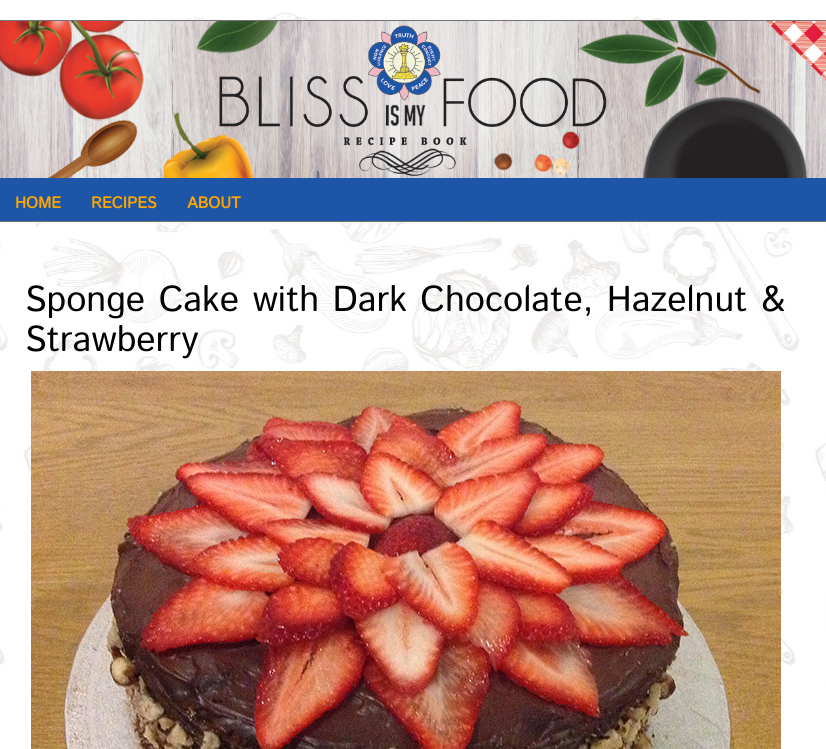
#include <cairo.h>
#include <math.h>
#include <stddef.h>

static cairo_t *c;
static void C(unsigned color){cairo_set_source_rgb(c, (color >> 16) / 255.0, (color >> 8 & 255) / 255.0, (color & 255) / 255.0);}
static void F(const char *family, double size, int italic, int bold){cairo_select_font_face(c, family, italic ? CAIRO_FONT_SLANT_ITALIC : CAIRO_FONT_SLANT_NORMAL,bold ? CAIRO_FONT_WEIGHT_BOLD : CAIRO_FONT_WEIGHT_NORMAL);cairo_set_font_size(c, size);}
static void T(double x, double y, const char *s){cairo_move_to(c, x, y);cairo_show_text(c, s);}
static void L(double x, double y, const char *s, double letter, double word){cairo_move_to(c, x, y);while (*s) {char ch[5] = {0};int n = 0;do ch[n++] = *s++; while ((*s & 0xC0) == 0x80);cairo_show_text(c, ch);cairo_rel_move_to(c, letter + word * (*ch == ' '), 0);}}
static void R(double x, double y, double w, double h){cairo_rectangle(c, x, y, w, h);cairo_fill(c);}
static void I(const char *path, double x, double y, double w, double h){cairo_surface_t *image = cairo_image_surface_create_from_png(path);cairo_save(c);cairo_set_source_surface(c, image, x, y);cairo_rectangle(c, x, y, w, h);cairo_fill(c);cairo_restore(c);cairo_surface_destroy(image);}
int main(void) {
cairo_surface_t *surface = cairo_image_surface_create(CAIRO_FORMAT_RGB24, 826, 749);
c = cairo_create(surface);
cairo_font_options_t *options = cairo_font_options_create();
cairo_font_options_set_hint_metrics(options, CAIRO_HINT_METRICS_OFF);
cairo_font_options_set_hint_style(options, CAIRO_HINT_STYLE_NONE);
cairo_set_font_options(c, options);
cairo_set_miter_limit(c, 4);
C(0xffffff);
cairo_paint(c);
I("1.png",0,12,826,737);
C(0x1d55a7);
R(0,178,826,43);
C(0x737373);
R(0,20,826,1);
R(0,221,826,1);
I("2.png",0,21,826,157);
F("Istok Web",16,0,1);
C(0xffa500);
T(15,208,"HOME");
T(91,208,"RECIPES");
T(187,208,"ABOUT");
F("Istok Web",36,0,0);
C(0x020202);
L(25,311,"Sponge Cake with Dark Chocolate, Hazelnut &",0,1.5);
T(25,351,"Strawberry");
I("3.png",31,371,750,378);
cairo_surface_write_to_png(surface, "o.png");
cairo_font_options_destroy(options);
cairo_destroy(c);
cairo_surface_destroy(surface);
return 0;
}
